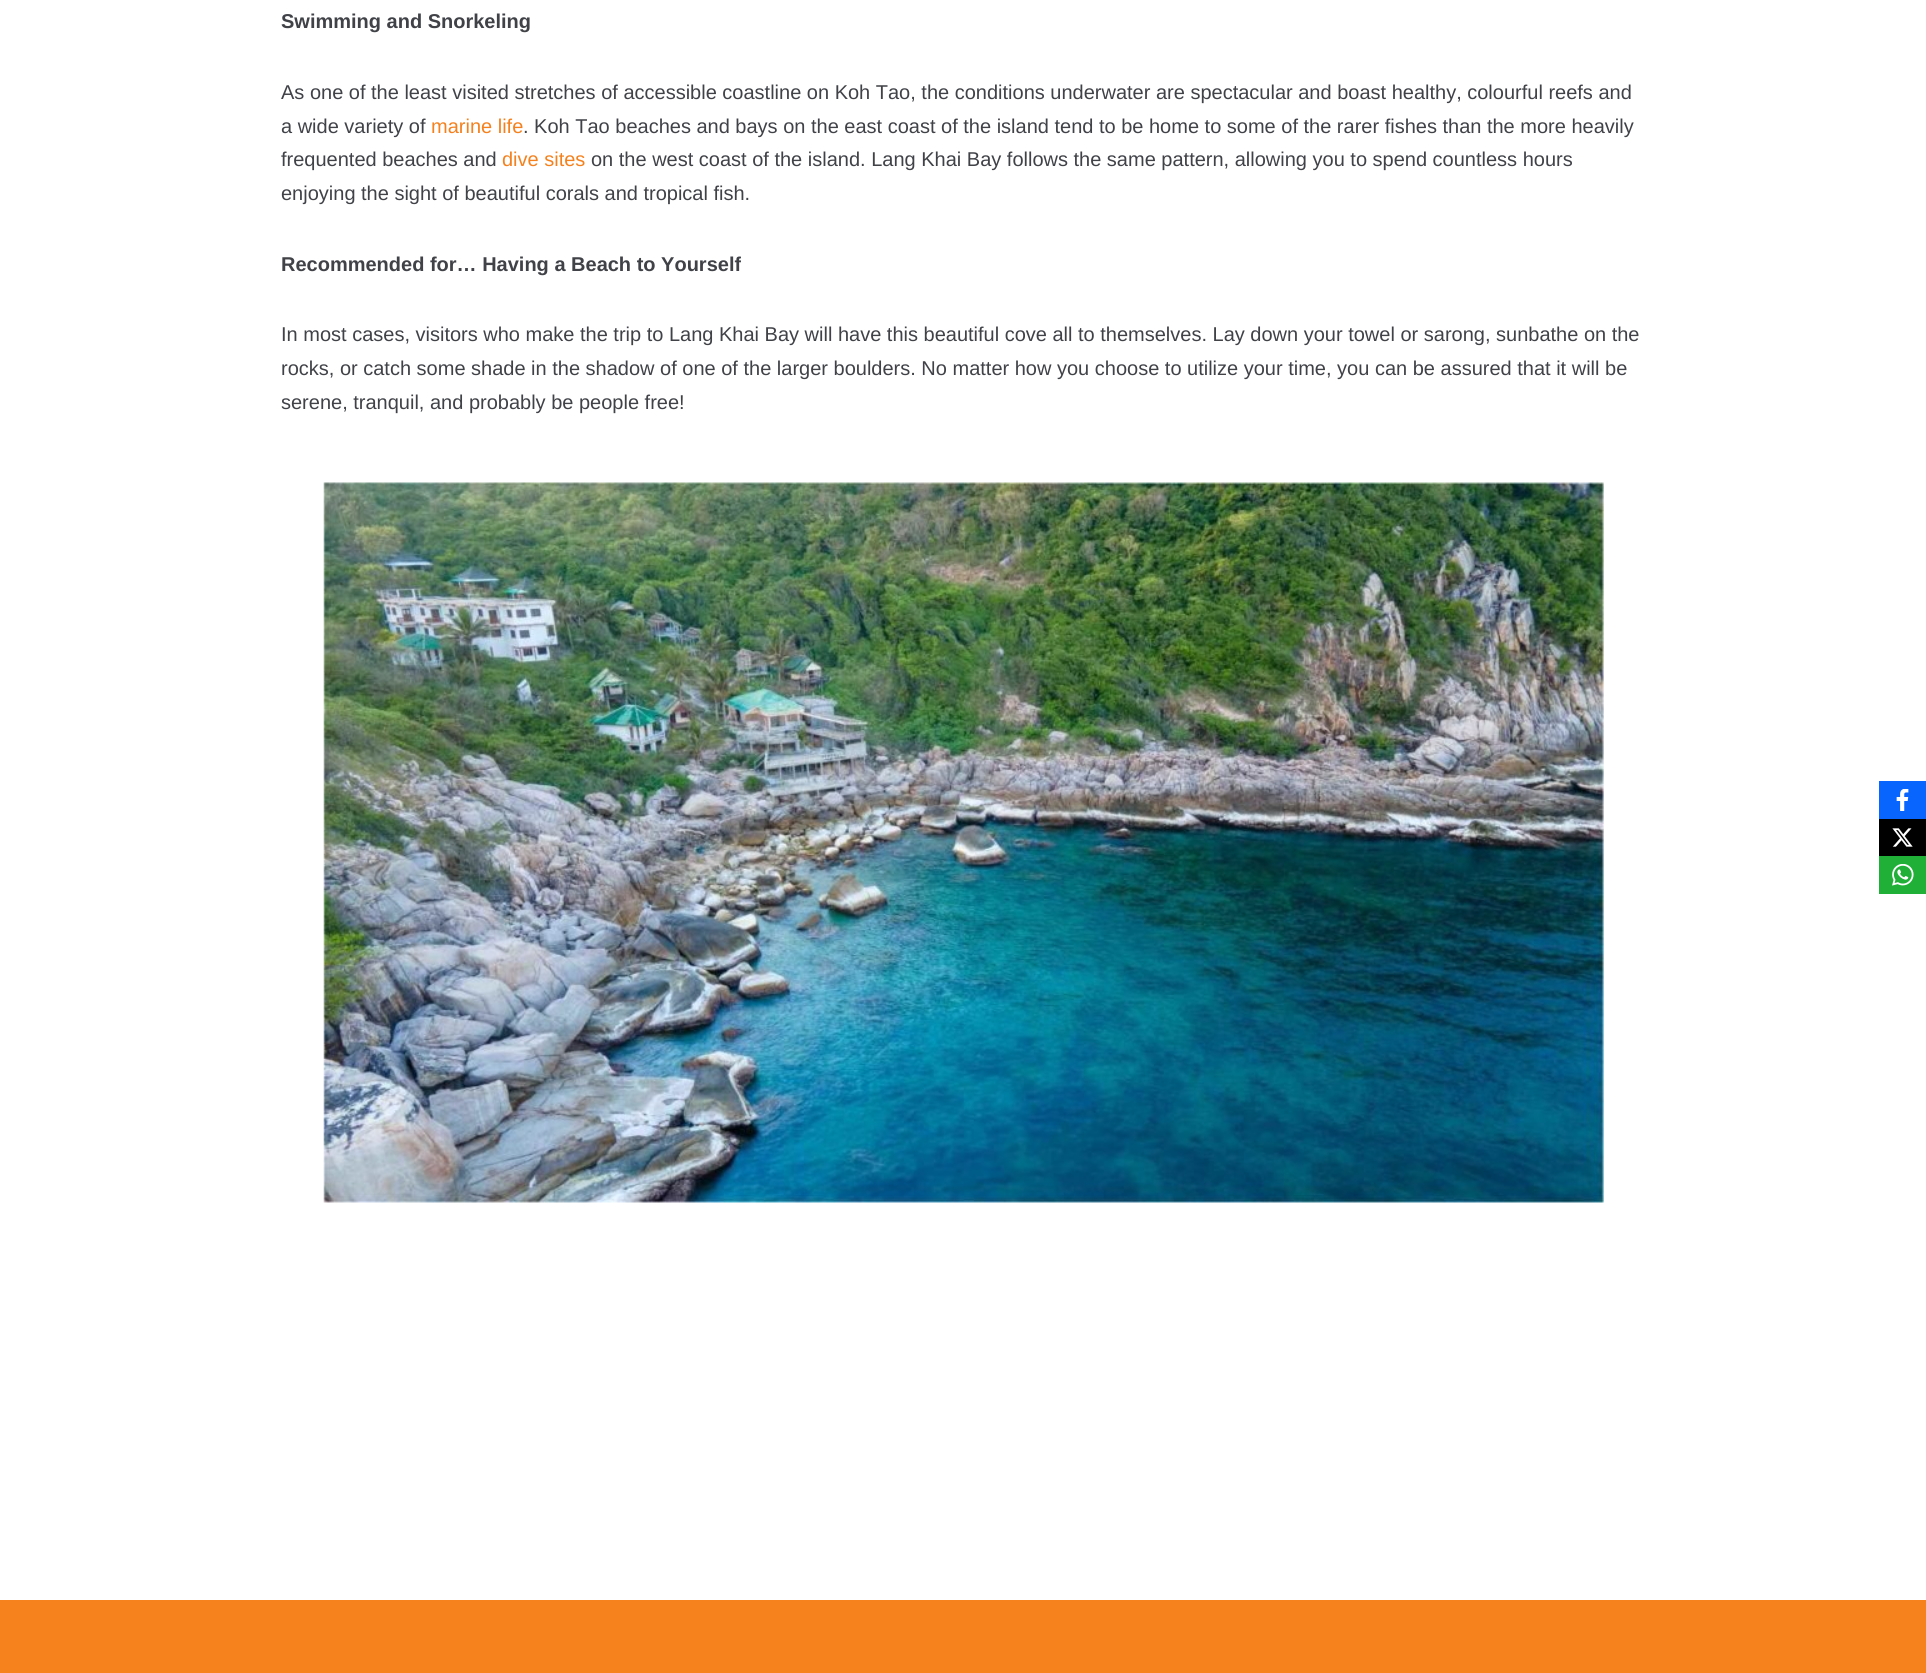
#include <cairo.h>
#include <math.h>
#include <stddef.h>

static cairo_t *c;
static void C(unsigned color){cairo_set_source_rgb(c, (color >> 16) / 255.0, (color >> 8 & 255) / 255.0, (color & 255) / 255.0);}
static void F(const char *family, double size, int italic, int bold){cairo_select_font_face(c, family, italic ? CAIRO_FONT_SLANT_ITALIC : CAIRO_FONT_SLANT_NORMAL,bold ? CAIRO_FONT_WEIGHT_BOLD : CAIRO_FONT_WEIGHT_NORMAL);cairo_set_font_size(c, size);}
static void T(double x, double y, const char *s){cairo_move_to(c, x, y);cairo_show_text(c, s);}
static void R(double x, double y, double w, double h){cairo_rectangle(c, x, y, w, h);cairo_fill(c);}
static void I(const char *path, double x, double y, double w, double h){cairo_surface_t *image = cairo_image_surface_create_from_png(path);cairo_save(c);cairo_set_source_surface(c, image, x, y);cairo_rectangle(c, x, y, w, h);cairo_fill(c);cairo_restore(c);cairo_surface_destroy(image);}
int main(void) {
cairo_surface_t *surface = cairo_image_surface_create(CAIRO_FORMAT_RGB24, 1926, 1673);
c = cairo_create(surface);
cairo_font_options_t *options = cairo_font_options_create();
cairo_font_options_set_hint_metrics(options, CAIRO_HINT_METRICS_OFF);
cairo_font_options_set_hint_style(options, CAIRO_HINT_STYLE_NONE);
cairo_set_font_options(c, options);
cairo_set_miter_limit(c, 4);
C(0xffffff);
cairo_paint(c);
F("Liberation Sans",20,0,1);
C(0x404248);
T(281,28,"Swimming and Snorkeling");
F("Liberation Sans",20,0,0);
T(281,99,"As one of the least visited stretches of accessible coastline on Koh Tao, the conditions underwater are spectacular and boast healthy, colourful reefs and");
T(281,133,"a wide variety of");
C(0xf5811e);
T(431,133,"marine life");
C(0x404248);
T(523,133,". Koh Tao beaches and bays on the east coast of the island tend to be home to some of the rarer fishes than the more heavily");
T(281,166,"frequented beaches and");
C(0xf5811e);
T(502,166,"dive sites");
C(0x404248);
T(591,166,"on the west coast of the island. Lang Khai Bay follows the same pattern, allowing you to spend countless hours");
T(281,200,"enjoying the sight of beautiful corals and tropical fish.");
F("Liberation Sans",20,0,1);
T(281,271,"Recommended for… Having a Beach to Yourself");
F("Liberation Sans",20,0,0);
T(281,341,"In most cases, visitors who make the trip to Lang Khai Bay will have this beautiful cove all to themselves. Lay down your towel or sarong, sunbathe on the");
T(281,375,"rocks, or catch some shade in the shadow of one of the larger boulders. No matter how you choose to utilize your time, you can be assured that it will be");
T(281,409,"serene, tranquil, and probably be people free!");
I("1.png",323,482,1281,721);
C(0xf5821c);
R(0,1600,1926,73);
C(0x0866ff);
R(1879,781,47,38);
I("2.png",1896,789,13,22);
C(0x000000);
R(1879,819,47,37);
I("3.png",1892,828,21,19);
C(0x20b038);
R(1879,856,47,38);
I("4.png",1892,864,22,22);
cairo_surface_write_to_png(surface, "o.png");
cairo_font_options_destroy(options);
cairo_destroy(c);
cairo_surface_destroy(surface);
return 0;
}
